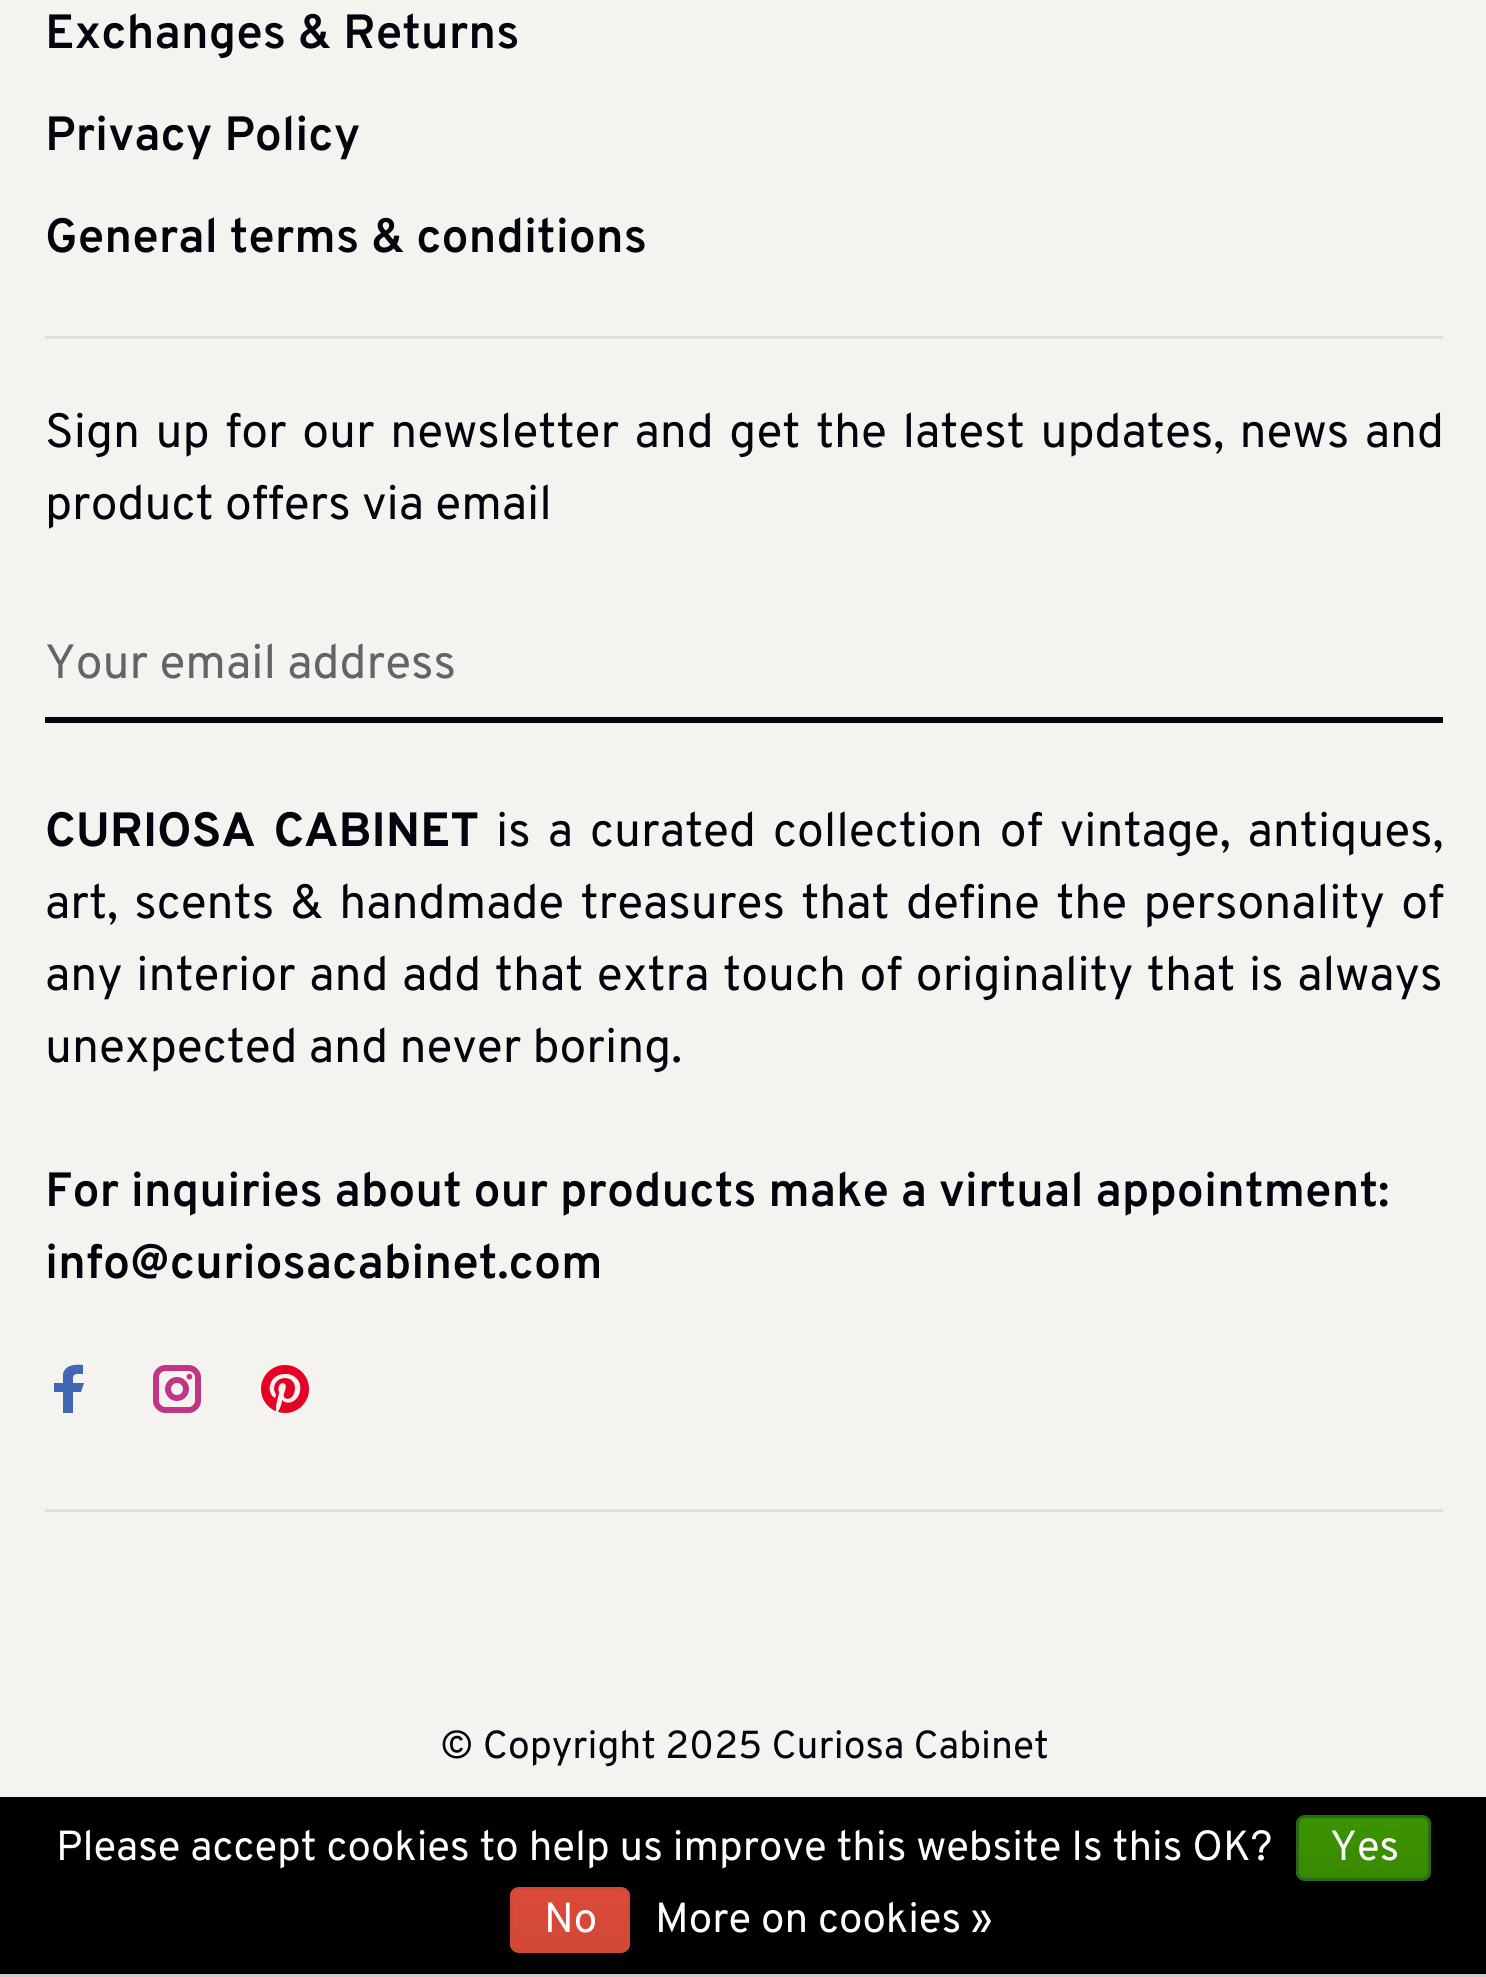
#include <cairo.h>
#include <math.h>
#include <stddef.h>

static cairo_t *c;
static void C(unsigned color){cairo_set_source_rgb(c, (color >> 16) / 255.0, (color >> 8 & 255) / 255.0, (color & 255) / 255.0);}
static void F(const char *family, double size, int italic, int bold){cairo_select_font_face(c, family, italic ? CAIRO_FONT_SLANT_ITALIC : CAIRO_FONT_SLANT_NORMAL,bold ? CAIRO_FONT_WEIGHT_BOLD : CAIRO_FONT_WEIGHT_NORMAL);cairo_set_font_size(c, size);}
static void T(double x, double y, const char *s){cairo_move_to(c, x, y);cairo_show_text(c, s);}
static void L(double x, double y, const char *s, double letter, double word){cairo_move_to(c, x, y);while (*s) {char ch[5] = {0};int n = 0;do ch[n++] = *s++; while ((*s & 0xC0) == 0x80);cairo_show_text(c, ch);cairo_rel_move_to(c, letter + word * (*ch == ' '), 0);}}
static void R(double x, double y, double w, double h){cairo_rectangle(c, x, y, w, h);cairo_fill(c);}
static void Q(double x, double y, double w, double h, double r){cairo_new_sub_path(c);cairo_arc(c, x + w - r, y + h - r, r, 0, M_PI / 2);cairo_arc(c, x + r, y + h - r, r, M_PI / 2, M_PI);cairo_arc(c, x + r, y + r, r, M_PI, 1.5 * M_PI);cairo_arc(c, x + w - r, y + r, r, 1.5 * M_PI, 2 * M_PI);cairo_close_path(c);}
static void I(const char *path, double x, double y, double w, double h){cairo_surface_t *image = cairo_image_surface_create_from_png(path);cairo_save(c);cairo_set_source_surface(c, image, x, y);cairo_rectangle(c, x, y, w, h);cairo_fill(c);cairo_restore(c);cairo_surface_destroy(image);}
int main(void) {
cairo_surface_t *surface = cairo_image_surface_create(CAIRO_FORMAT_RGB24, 1486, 1977);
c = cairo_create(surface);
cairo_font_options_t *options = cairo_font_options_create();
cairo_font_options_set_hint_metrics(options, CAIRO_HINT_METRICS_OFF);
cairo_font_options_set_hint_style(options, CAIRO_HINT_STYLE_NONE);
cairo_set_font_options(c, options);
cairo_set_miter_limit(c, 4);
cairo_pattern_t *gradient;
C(0xf5f3f0);
cairo_paint(c);
C(0xe1e0dd);
R(45,336,1398,3);
F("Overpass SemiBold",48,0,0);
C(0x02050d);
T(45,48,"Exchanges & Returns");
T(45,150,"Privacy Policy");
T(45,252,"General terms & conditions");
F("Overpass",48,0,0);
L(45,447,"Sign up for our newsletter and get the latest updates, news and",0,4.25);
T(45,519,"product offers via email");
R(45,717,1398,6);
C(0x636468);
T(45,678,"Your email address");
F("Overpass",48,0,1);
C(0x02050d);
L(45,846,"CURIOSA CABINET",0,5.75);
F("Overpass",48,0,0);
L(496,846,"is a curated collection of vintage, antiques,",0,5.75);
L(45,918,"art, scents & handmade treasures that define the personality of",0,5);
L(45,990,"any interior and add that extra touch of originality that is always",0,2.25);
T(45,1062,"unexpected and never boring.");
F("Overpass SemiBold",48,0,0);
T(45,1206,"For inquiries about our products make a virtual appointment:");
T(45,1278,"info@curiosacabinet.com");
C(0xe1e0dd);
R(45,1509,1398,3);
C(0x4267b2);
cairo_new_path(c);
cairo_move_to(c,73,1378);
cairo_curve_to(c,73,1373,78,1374,83,1374);
cairo_line_to(c,83,1365);
cairo_curve_to(c,75,1364,65,1365,63,1374);
cairo_line_to(c,63,1383);
cairo_line_to(c,54,1383);
cairo_line_to(c,54,1392);
cairo_line_to(c,63,1392);
cairo_line_to(c,63,1413);
cairo_line_to(c,73,1413);
cairo_line_to(c,73,1392);
cairo_line_to(c,81,1392);
cairo_line_to(c,84,1383);
cairo_line_to(c,73,1383);
cairo_close_path(c);
cairo_fill(c);
I("1.png",153,1365,48,48);
I("2.png",261,1365,48,48);
F("Overpass",39,0,0);
C(0x02050d);
T(440,1758,"© Copyright 2025 Curiosa Cabinet");
C(0x000000);
R(0,1797,1486,177);
C(0xcccccc);
R(0,1974,1486,3);
F("Overpass",42,0,0);
C(0xffffff);
T(56,1860,"Please accept cookies to help us improve this website Is this OK?");
cairo_save(c);
Q(1296,1815,135,66,9);
cairo_clip(c);
gradient = cairo_pattern_create_linear(1364,1818,1364,1878);
cairo_pattern_add_color_stop_rgba(gradient,0,0.235,0.576,0,1);
cairo_pattern_add_color_stop_rgba(gradient,1,0.224,0.541,0,1);
cairo_set_source(c,gradient);
cairo_pattern_destroy(gradient);
R(1296,1818,135,60);
cairo_restore(c);
Q(1297.5,1816.5,132,63,7.5);
C(0x29691d);
cairo_set_line_width(c,3);
cairo_stroke(c);
C(0xffffff);
T(1330,1860,"Yes");
cairo_save(c);
Q(510,1887,120,66,9);
cairo_clip(c);
gradient = cairo_pattern_create_linear(570,1890,570,1950);
cairo_pattern_add_color_stop_rgba(gradient,0,0.863,0.29,0.22,1);
cairo_pattern_add_color_stop_rgba(gradient,1,0.82,0.282,0.212,1);
cairo_set_source(c,gradient);
cairo_pattern_destroy(gradient);
R(510,1890,120,60);
cairo_restore(c);
Q(511.5,1888.5,117,63,7.5);
C(0xd14836);
cairo_stroke(c);
C(0xffffff);
T(544,1932,"No");
T(655,1932,"More on cookies »");
cairo_surface_write_to_png(surface, "o.png");
cairo_font_options_destroy(options);
cairo_destroy(c);
cairo_surface_destroy(surface);
return 0;
}
